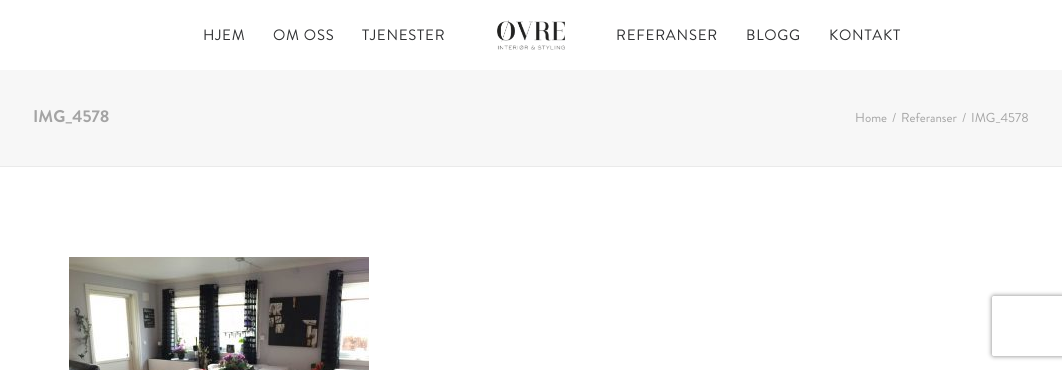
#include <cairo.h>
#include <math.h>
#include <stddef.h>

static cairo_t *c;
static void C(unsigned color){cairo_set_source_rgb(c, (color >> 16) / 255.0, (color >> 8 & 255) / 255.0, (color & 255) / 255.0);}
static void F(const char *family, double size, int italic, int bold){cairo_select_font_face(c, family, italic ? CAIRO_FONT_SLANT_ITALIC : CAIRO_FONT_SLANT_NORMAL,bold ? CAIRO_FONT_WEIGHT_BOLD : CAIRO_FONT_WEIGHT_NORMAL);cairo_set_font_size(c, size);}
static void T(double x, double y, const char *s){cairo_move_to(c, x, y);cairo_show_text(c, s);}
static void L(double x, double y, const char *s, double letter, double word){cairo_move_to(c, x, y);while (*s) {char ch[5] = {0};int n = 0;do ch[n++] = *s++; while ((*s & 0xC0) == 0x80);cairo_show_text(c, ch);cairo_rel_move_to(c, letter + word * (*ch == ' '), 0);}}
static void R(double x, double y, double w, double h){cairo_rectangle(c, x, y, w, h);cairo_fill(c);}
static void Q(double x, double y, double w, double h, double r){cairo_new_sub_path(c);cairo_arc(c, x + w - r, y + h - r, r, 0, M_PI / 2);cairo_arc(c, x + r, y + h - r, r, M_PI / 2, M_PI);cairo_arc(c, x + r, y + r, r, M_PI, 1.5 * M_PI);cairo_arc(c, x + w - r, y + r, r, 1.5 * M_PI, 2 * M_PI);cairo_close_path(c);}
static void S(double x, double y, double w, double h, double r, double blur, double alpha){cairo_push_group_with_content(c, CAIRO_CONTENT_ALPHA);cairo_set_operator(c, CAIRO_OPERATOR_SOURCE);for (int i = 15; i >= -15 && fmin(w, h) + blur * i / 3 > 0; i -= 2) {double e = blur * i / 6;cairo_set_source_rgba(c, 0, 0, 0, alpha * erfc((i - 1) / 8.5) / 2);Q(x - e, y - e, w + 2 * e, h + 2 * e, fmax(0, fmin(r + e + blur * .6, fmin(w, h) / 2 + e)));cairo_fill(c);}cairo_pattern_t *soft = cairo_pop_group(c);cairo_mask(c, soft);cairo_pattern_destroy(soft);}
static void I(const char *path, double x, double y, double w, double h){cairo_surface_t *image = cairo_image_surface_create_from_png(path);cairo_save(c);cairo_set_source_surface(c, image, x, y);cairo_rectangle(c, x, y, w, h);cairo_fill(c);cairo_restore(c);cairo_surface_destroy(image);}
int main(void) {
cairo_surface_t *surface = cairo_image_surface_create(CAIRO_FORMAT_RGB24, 1062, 370);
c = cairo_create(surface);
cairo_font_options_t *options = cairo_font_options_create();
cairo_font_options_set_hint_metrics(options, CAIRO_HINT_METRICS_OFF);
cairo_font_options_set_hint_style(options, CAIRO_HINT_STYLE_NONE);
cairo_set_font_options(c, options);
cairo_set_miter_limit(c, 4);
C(0xffffff);
cairo_paint(c);
F("Brandon Grotesque",15,0,0);
C(0x303133);
L(203,40,"HJEM",.75,0);
L(273,40,"OM OSS",.75,0);
L(362,40,"TJENESTER",.75,0);
I("1.png",497,20,68,30);
L(616,40,"REFERANSER",.75,0);
L(746,40,"BLOGG",.75,0);
L(829,40,"KONTAKT",.75,0);
C(0xf7f7f7);
R(0,70,1062,96);
C(0xeaeaea);
R(0,166,1062,1);
F("Brandon Grotesque",17,0,1);
C(0xa4a4a4);
T(33,122,"IMG_4578");
F("Brandon Grotesque",13,0,0);
T(855,122,"Home");
T(892,122,"/");
T(901,122,"Referanser");
T(962,122,"/");
T(971,122,"IMG_4578");
I("2.png",69,257,300,113);
cairo_save(c);
cairo_set_fill_rule(c,CAIRO_FILL_RULE_EVEN_ODD);
cairo_new_path(c);
cairo_move_to(c,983,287);
cairo_line_to(c,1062,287);
cairo_line_to(c,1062,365);
cairo_line_to(c,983,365);
cairo_close_path(c);
cairo_move_to(c,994,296);
cairo_line_to(c,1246,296);
cairo_curve_to(c,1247,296,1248,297,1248,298);
cairo_line_to(c,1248,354);
cairo_curve_to(c,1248,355,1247,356,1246,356);
cairo_line_to(c,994,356);
cairo_curve_to(c,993,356,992,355,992,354);
cairo_line_to(c,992,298);
cairo_curve_to(c,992,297,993,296,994,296);
cairo_close_path(c);
cairo_clip(c);
C(0x808080);
S(992,296,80,60,2,2.5,1);
cairo_restore(c);
cairo_surface_write_to_png(surface, "o.png");
cairo_font_options_destroy(options);
cairo_destroy(c);
cairo_surface_destroy(surface);
return 0;
}
